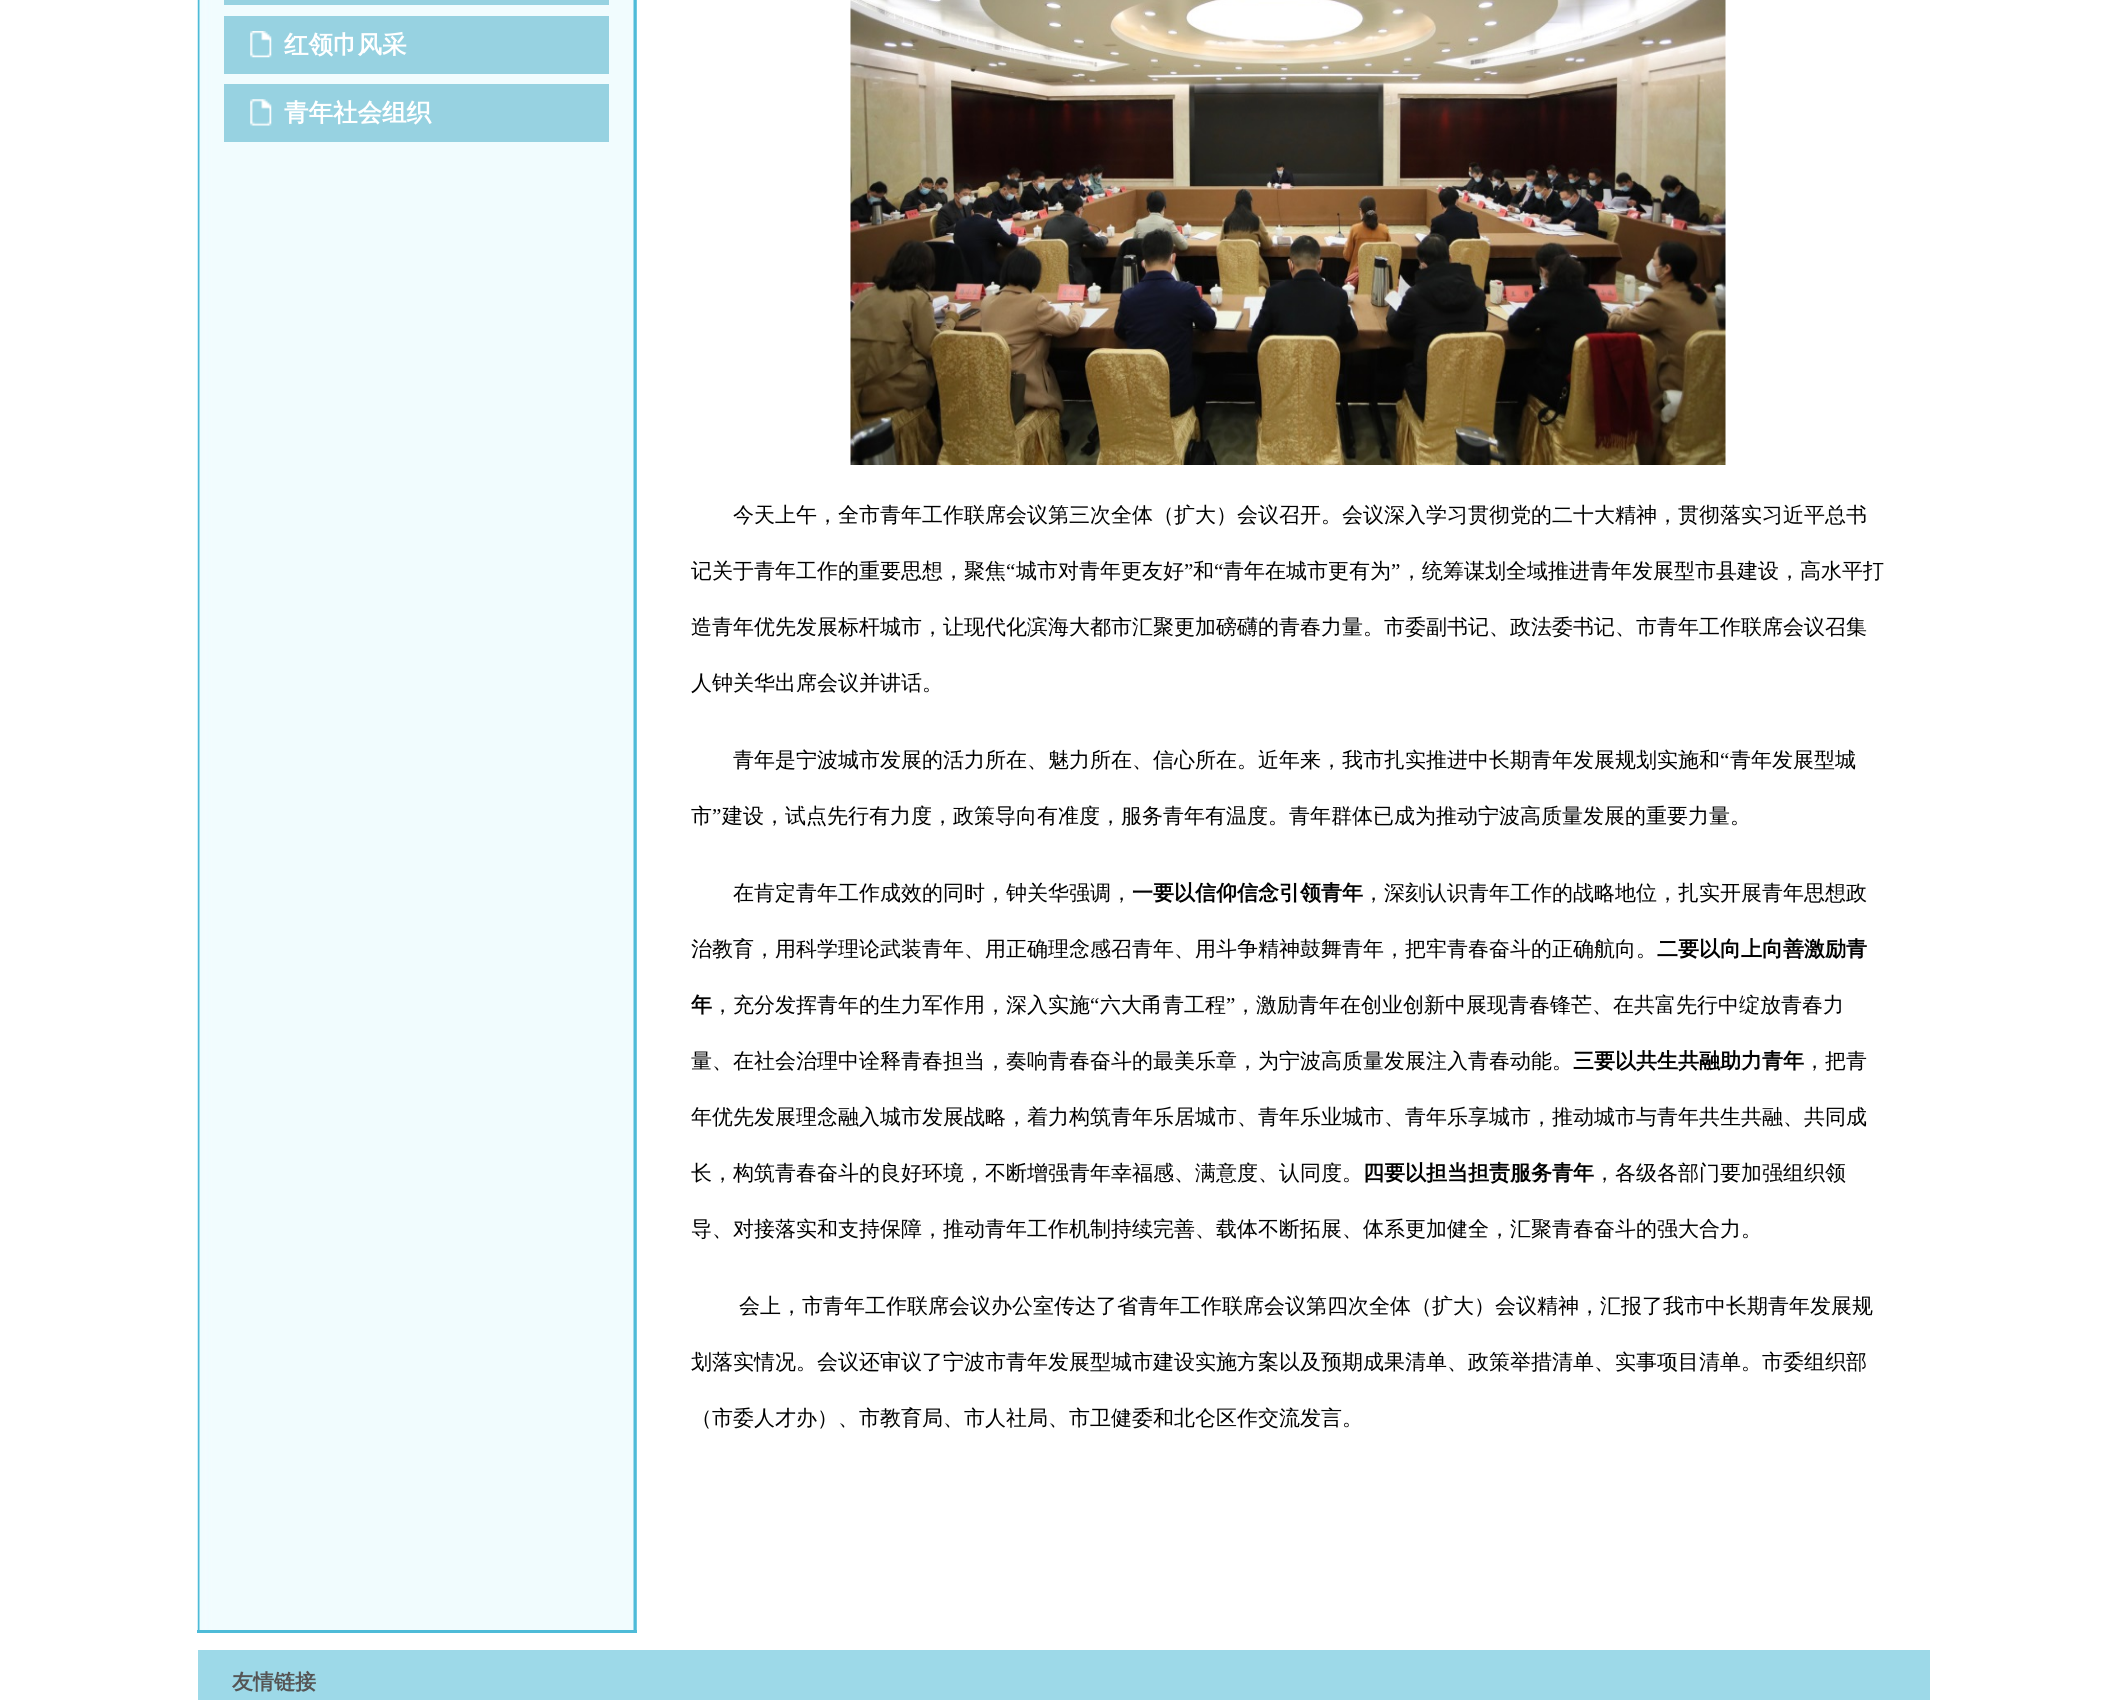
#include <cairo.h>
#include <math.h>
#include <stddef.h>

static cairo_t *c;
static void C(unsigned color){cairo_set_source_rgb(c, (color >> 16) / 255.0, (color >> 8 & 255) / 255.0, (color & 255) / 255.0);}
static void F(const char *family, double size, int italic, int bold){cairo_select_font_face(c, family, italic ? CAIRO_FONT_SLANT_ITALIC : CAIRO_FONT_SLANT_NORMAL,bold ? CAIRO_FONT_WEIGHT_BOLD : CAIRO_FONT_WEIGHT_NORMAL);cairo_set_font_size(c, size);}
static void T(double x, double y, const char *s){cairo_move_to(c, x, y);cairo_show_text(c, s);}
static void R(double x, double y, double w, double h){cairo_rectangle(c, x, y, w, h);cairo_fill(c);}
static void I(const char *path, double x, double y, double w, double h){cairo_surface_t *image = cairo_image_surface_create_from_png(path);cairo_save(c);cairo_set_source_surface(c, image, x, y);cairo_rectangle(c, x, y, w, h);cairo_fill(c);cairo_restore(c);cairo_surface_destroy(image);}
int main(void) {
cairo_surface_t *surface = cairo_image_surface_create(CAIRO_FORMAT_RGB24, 2125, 1700);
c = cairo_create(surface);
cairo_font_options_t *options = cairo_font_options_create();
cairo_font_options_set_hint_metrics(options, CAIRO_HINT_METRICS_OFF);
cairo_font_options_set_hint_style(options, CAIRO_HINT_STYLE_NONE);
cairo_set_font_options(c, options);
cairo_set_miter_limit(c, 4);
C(0xffffff);
cairo_paint(c);
I("1.png",197,0,440,1630);
C(0x97d2e1);
R(224,0,385,5);
R(224,16,385,58);
I("2.png",250,31,22,27);
F("WenQuanYi Zen Hei",24.5,0,1);
C(0xffffff);
T(284,53,"红领巾风采");
C(0x97d2e1);
R(224,84,385,58);
I("3.png",250,99,22,27);
C(0xffffff);
T(284,121,"青年社会组织");
I("4.png",850,0,876,465);
F("WenQuanYi Zen Hei Medium",21,0,0);
C(0x000000);
T(733,522,"今天上午，全市青年工作联席会议第三次全体（扩大）会议召开。会议深入学习贯彻党的二十大精神，贯彻落实习近平总书");
T(691,578,"记关于青年工作的重要思想，聚焦");
F("Liberation Serif",21,0,0);
T(1006,578,"“");
F("WenQuanYi Zen Hei Medium",21,0,0);
T(1016,578,"城市对青年更友好");
F("Liberation Serif",21,0,0);
T(1184,578,"”");
F("WenQuanYi Zen Hei Medium",21,0,0);
T(1193,578,"和");
F("Liberation Serif",21,0,0);
T(1214,578,"“");
F("WenQuanYi Zen Hei Medium",21,0,0);
T(1223,578,"青年在城市更有为");
F("Liberation Serif",21,0,0);
T(1391,578,"”");
F("WenQuanYi Zen Hei Medium",21,0,0);
T(1401,578,"，统筹谋划全域推进青年发展型市县建设，高水平打");
T(691,634,"造青年优先发展标杆城市，让现代化滨海大都市汇聚更加磅礴的青春力量。市委副书记、政法委书记、市青年工作联席会议召集");
T(691,690,"人钟关华出席会议并讲话。");
T(733,767,"青年是宁波城市发展的活力所在、魅力所在、信心所在。近年来，我市扎实推进中长期青年发展规划实施和");
F("Liberation Serif",21,0,0);
T(1720,767,"“");
F("WenQuanYi Zen Hei Medium",21,0,0);
T(1730,767,"青年发展型城");
T(691,823,"市");
F("Liberation Serif",21,0,0);
T(712,823,"”");
F("WenQuanYi Zen Hei Medium",21,0,0);
T(722,823,"建设，试点先行有力度，政策导向有准度，服务青年有温度。青年群体已成为推动宁波高质量发展的重要力量。");
T(733,900,"在肯定青年工作成效的同时，钟关华强调，");
F("WenQuanYi Zen Hei",21,0,1);
T(1132,900,"一要以信仰信念引领青年");
F("WenQuanYi Zen Hei Medium",21,0,0);
T(1363,900,"，深刻认识青年工作的战略地位，扎实开展青年思想政");
T(691,956,"治教育，用科学理论武装青年、用正确理念感召青年、用斗争精神鼓舞青年，把牢青春奋斗的正确航向。");
F("WenQuanYi Zen Hei",21,0,1);
T(1657,956,"二要以向上向善激励青");
T(691,1012,"年");
F("WenQuanYi Zen Hei Medium",21,0,0);
T(712,1012,"，充分发挥青年的生力军作用，深入实施");
F("Liberation Serif",21,0,0);
T(1090,1012,"“");
F("WenQuanYi Zen Hei Medium",21,0,0);
T(1100,1012,"六大甬青工程");
F("Liberation Serif",21,0,0);
T(1226,1012,"”");
F("WenQuanYi Zen Hei Medium",21,0,0);
T(1235,1012,"，激励青年在创业创新中展现青春锋芒、在共富先行中绽放青春力");
T(691,1068,"量、在社会治理中诠释青春担当，奏响青春奋斗的最美乐章，为宁波高质量发展注入青春动能。");
F("WenQuanYi Zen Hei",21,0,1);
T(1573,1068,"三要以共生共融助力青年");
F("WenQuanYi Zen Hei Medium",21,0,0);
T(1804,1068,"，把青");
T(691,1124,"年优先发展理念融入城市发展战略，着力构筑青年乐居城市、青年乐业城市、青年乐享城市，推动城市与青年共生共融、共同成");
T(691,1180,"长，构筑青春奋斗的良好环境，不断增强青年幸福感、满意度、认同度。");
F("WenQuanYi Zen Hei",21,0,1);
T(1363,1180,"四要以担当担责服务青年");
F("WenQuanYi Zen Hei Medium",21,0,0);
T(1594,1180,"，各级各部门要加强组织领");
T(691,1236,"导、对接落实和支持保障，推动青年工作机制持续完善、载体不断拓展、体系更加健全，汇聚青春奋斗的强大合力。");
T(739,1313,"会上，市青年工作联席会议办公室传达了省青年工作联席会议第四次全体（扩大）会议精神，汇报了我市中长期青年发展规");
T(691,1369,"划落实情况。会议还审议了宁波市青年发展型城市建设实施方案以及预期成果清单、政策举措清单、实事项目清单。市委组织部");
T(691,1425,"（市委人才办）、市教育局、市人社局、市卫健委和北仑区作交流发言。");
C(0x4ebbd8);
R(197,1630,440,3);
C(0x9dd9e8);
R(198,1650,1732,50);
F("WenQuanYi Zen Hei",21,0,1);
C(0x555555);
T(232,1689,"友情链接");
cairo_surface_write_to_png(surface, "o.png");
cairo_font_options_destroy(options);
cairo_destroy(c);
cairo_surface_destroy(surface);
return 0;
}
